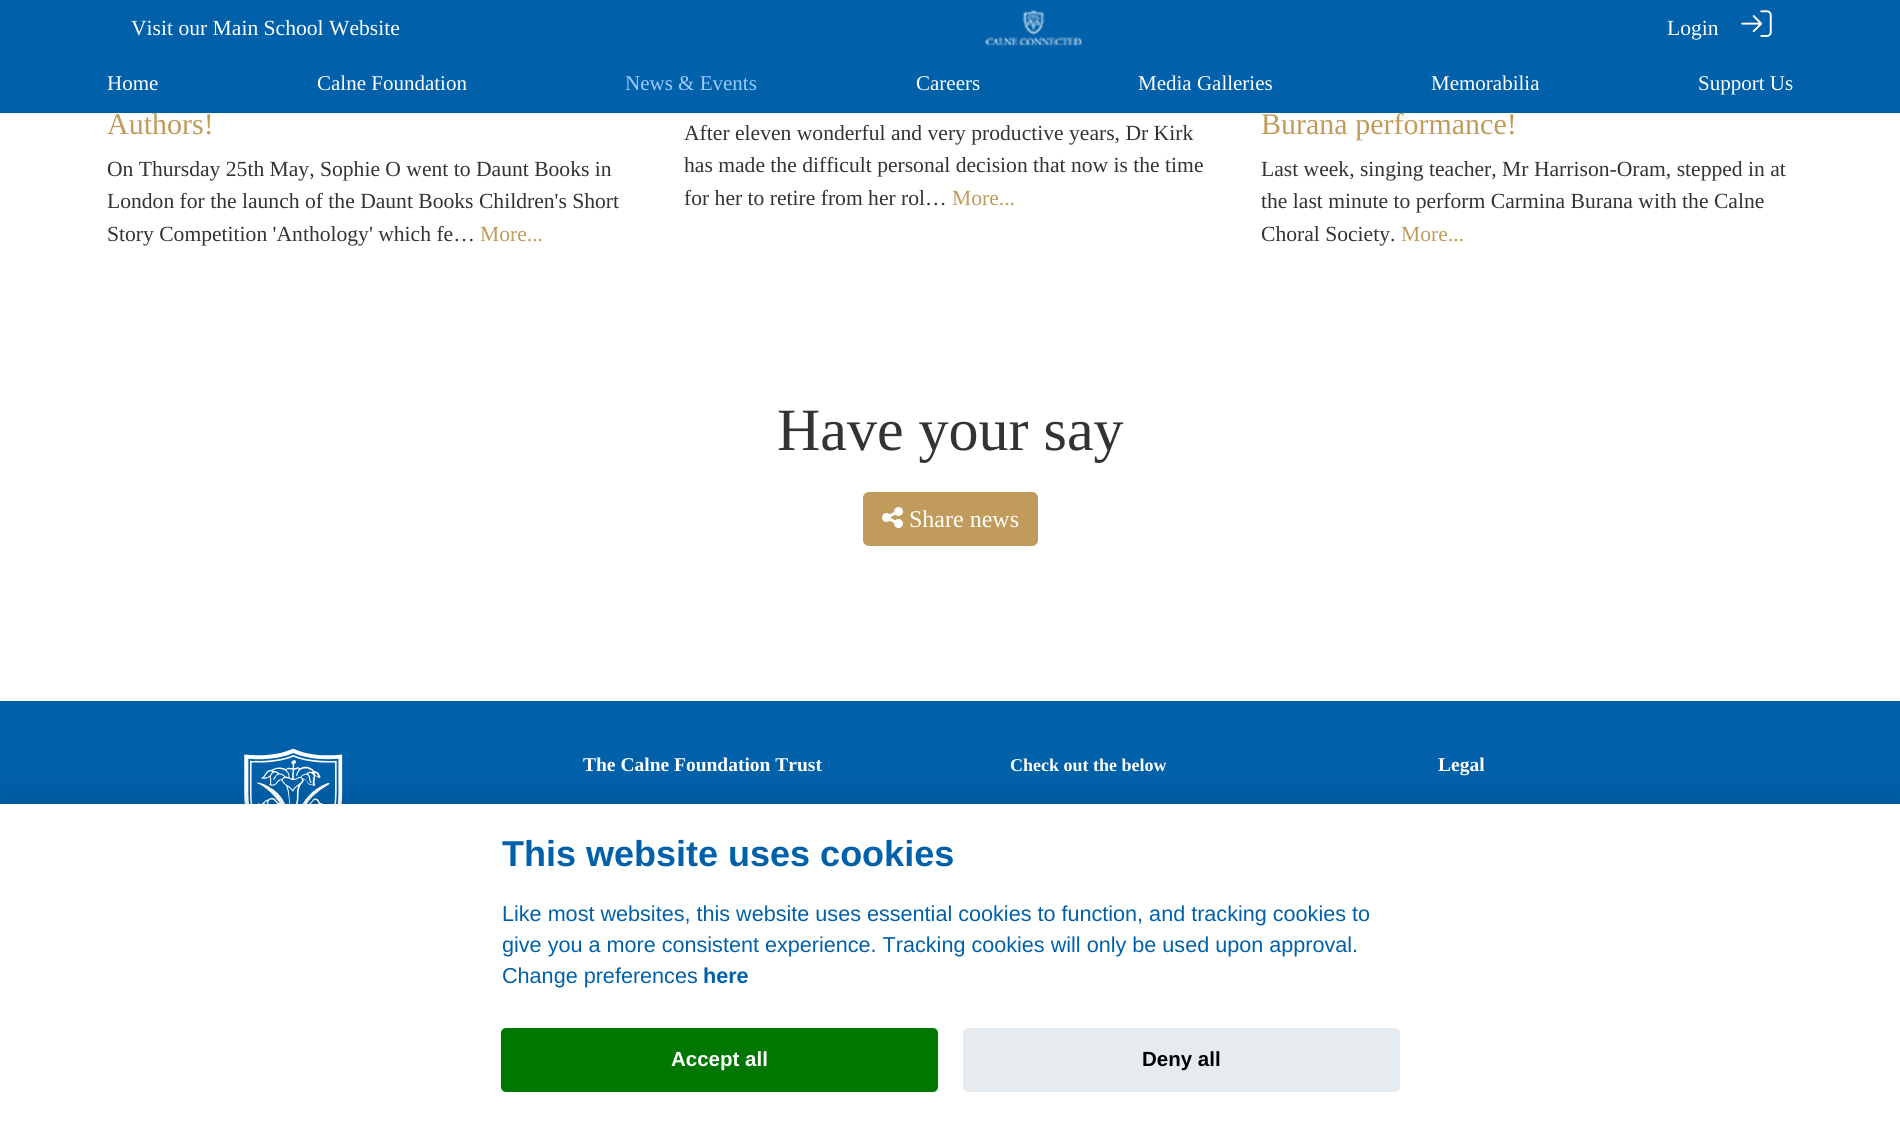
#include <cairo.h>
#include <math.h>
#include <stddef.h>

static cairo_t *c;
static void C(unsigned color){cairo_set_source_rgb(c, (color >> 16) / 255.0, (color >> 8 & 255) / 255.0, (color & 255) / 255.0);}
static void F(const char *family, double size, int italic, int bold){cairo_select_font_face(c, family, italic ? CAIRO_FONT_SLANT_ITALIC : CAIRO_FONT_SLANT_NORMAL,bold ? CAIRO_FONT_WEIGHT_BOLD : CAIRO_FONT_WEIGHT_NORMAL);cairo_set_font_size(c, size);}
static void T(double x, double y, const char *s){cairo_move_to(c, x, y);cairo_show_text(c, s);}
static void R(double x, double y, double w, double h){cairo_rectangle(c, x, y, w, h);cairo_fill(c);}
static void Q(double x, double y, double w, double h, double r){cairo_new_sub_path(c);cairo_arc(c, x + w - r, y + h - r, r, 0, M_PI / 2);cairo_arc(c, x + r, y + h - r, r, M_PI / 2, M_PI);cairo_arc(c, x + r, y + r, r, M_PI, 1.5 * M_PI);cairo_arc(c, x + w - r, y + r, r, 1.5 * M_PI, 2 * M_PI);cairo_close_path(c);}
static void S(double x, double y, double w, double h, double r, double blur, double alpha){cairo_push_group_with_content(c, CAIRO_CONTENT_ALPHA);cairo_set_operator(c, CAIRO_OPERATOR_SOURCE);for (int i = 15; i >= -15 && fmin(w, h) + blur * i / 3 > 0; i -= 2) {double e = blur * i / 6;cairo_set_source_rgba(c, 0, 0, 0, alpha * erfc((i - 1) / 8.5) / 2);Q(x - e, y - e, w + 2 * e, h + 2 * e, fmax(0, fmin(r + e + blur * .6, fmin(w, h) / 2 + e)));cairo_fill(c);}cairo_pattern_t *soft = cairo_pop_group(c);cairo_mask(c, soft);cairo_pattern_destroy(soft);}
static void I(const char *path, double x, double y, double w, double h){cairo_surface_t *image = cairo_image_surface_create_from_png(path);cairo_save(c);cairo_set_source_surface(c, image, x, y);cairo_rectangle(c, x, y, w, h);cairo_fill(c);cairo_restore(c);cairo_surface_destroy(image);}
int main(void) {
cairo_surface_t *surface = cairo_image_surface_create(CAIRO_FORMAT_RGB24, 1900, 1134);
c = cairo_create(surface);
cairo_font_options_t *options = cairo_font_options_create();
cairo_font_options_set_hint_metrics(options, CAIRO_HINT_METRICS_OFF);
cairo_font_options_set_hint_style(options, CAIRO_HINT_STYLE_NONE);
cairo_set_font_options(c, options);
cairo_set_miter_limit(c, 4);
C(0x0060a9);
cairo_paint(c);
F("Liberation Serif",21.6,0,0);
C(0xffffff);
T(131,35,"Visit our Main School Website");
I("1.png",985,10,97,36);
T(1667,35,"Login");
I("2.png",1741,10,31,27);
R(0,113,1900,588);
F("Liberation Serif",30,0,0);
C(0xc09b5b);
T(1261,134,"Burana performance!");
C(0x0060a9);
R(1400,112,3,1);
F("Liberation Serif",21,0,0);
C(0xffffff);
T(107,90,"Home");
T(317,90,"Calne Foundation");
C(0x99ccff);
T(625,90,"News & Events");
C(0xffffff);
T(916,90,"Careers");
T(1138,90,"Media Galleries");
T(1431,90,"Memorabilia");
T(1698,90,"Support Us");
F("Liberation Serif",30,0,0);
C(0xc09b5b);
T(107,134,"Authors!");
F("Liberation Serif",21.6,0,0);
C(0x333333);
T(107,176,"On Thursday 25th May, Sophie O went to Daunt Books in");
T(107,208,"London for the launch of the Daunt Books Children's Short");
T(107,241,"Story Competition 'Anthology' which fe…");
C(0xc09b5b);
T(480,241,"More...");
C(0x333333);
T(684,140,"After eleven wonderful and very productive years, Dr Kirk");
T(684,172,"has made the difficult personal decision that now is the time");
T(684,205,"for her to retire from her rol…");
C(0xc09b5b);
T(952,205,"More...");
C(0x333333);
T(1261,176,"Last week, singing teacher, Mr Harrison-Oram, stepped in at");
T(1261,208,"the last minute to perform Carmina Burana with the Calne");
T(1261,241,"Choral Society.");
C(0xc09b5b);
T(1401,241,"More...");
F("Liberation Serif",60,0,0);
C(0x333333);
T(777,450,"Have your say");
C(0xc09b5b);
Q(863,492,175,54,6);
cairo_fill(c);
I("3.png",882,507,21,21);
F("Liberation Serif",24,0,0);
C(0xffffff);
T(909,527,"Share news");
I("4.png",244,749,99,55);
F("Liberation Serif",19.5,0,1);
T(583,771,"The Calne Foundation Trust");
F("Liberation Serif",18,0,1);
T(1010,771,"Check out the below");
F("Liberation Serif",19.5,0,1);
T(1438,771,"Legal");
C(0x020203);
S(0,819,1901,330,0,22.5,.28);
C(0xffffff);
R(0,804,1900,330);
F("Liberation Sans",36,0,1);
C(0x0060a9);
T(502,866,"This website uses cookies");
F("Liberation Sans",21.6,0,0);
T(502,921,"Like most websites, this website uses essential cookies to function, and tracking cookies to");
T(502,952,"give you a more consistent experience. Tracking cookies will only be used upon approval.");
T(502,983,"Change preferences");
F("Liberation Sans",21.6,0,1);
T(703,983,"here");
C(0x007700);
Q(501,1028,437,64,5);
cairo_fill(c);
F("Liberation Sans",20.5,0,1);
C(0xffffff);
T(671,1066,"Accept all");
C(0xe5ebef);
Q(963,1028,437,64,5);
cairo_fill(c);
C(0x000000);
T(1142,1066,"Deny all");
cairo_surface_write_to_png(surface, "o.png");
cairo_font_options_destroy(options);
cairo_destroy(c);
cairo_surface_destroy(surface);
return 0;
}
